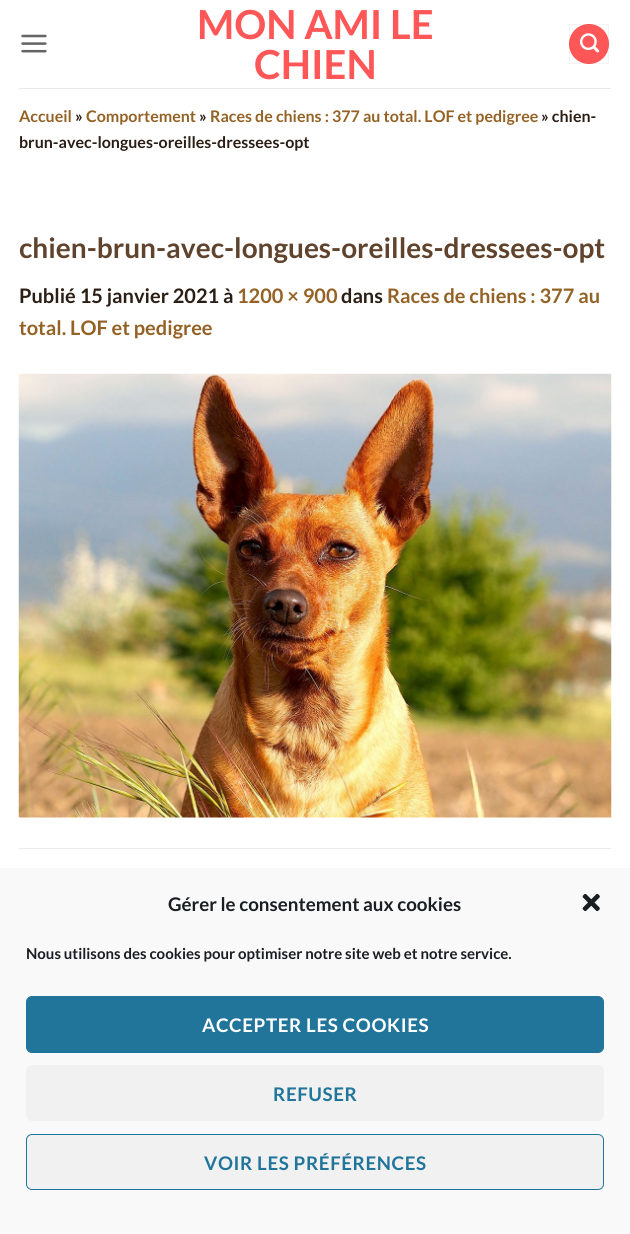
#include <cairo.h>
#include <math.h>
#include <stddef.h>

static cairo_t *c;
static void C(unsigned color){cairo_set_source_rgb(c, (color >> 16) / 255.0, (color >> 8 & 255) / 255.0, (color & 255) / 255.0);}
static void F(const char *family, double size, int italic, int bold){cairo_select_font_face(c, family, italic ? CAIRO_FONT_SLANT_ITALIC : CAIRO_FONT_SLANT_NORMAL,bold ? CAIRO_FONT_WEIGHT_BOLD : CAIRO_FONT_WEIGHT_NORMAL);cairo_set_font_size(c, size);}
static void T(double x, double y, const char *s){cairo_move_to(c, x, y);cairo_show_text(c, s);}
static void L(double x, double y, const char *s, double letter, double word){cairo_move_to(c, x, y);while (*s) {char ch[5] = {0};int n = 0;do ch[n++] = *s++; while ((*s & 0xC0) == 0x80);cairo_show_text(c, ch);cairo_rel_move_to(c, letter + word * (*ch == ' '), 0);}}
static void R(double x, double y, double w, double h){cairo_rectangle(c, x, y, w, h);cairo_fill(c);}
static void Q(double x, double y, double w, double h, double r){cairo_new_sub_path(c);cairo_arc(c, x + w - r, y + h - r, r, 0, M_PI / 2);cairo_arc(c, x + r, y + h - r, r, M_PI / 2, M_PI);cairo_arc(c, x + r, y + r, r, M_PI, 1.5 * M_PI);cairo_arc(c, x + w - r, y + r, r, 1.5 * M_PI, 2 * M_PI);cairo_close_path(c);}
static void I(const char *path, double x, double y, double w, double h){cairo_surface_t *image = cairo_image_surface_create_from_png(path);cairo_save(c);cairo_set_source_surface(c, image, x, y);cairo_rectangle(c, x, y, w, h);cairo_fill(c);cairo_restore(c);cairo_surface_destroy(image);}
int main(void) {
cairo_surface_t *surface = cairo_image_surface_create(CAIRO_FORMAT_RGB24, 630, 1234);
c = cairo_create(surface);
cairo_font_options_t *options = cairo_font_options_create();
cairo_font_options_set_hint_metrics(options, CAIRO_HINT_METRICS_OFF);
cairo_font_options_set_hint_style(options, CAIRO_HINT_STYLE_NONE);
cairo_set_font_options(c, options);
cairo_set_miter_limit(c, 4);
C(0xffffff);
cairo_paint(c);
I("1.png",21,34,26,19);
F("Lato",40,0,1);
C(0xff5757);
T(197,39,"MON AMI LE");
T(254,79,"CHIEN");
cairo_new_path(c);
cairo_arc(c,589,44,20,0,2 * M_PI);
cairo_fill(c);
cairo_rectangle(c,569.5,24.5,39,39);
cairo_set_source_rgba(c,0,0,0,0.05);
cairo_set_line_width(c,1);
cairo_stroke(c);
I("2.png",580,33,20,20);
C(0xeae9e8);
R(19,88,592,1);
F("Lato",16,0,1);
C(0x946225);
T(19,122,"Accueil");
C(0x2b1e14);
T(75,122,"»");
C(0x946225);
T(86,122,"Comportement");
C(0x2b1e14);
T(199,122,"»");
C(0x946225);
T(210,122,"Races de chiens : 377 au total. LOF et pedigree");
C(0x2b1e14);
T(541,122,"» chien-");
T(19,148,"brun-avec-longues-oreilles-dressees-opt");
F("Lato",28,0,1);
C(0x5f432c);
T(19,258,"chien-brun-avec-longues-oreilles-dressees-opt");
F("Lato",20,0,1);
C(0x2b1e14);
T(19,303,"Publié 15 janvier 2021 à");
C(0x946225);
T(237,303,"1200 × 900");
C(0x2b1e14);
T(341,303,"dans");
C(0x946225);
T(387,303,"Races de chiens : 377 au");
T(19,335,"total. LOF et pedigree");
I("3.png",18,373,594,445);
C(0xececec);
R(19,848,592,1);
C(0xf9f9f9);
R(0,868,630,366);
F("Lato",18.75,0,1);
C(0x191e23);
T(168,911,"Gérer le consentement aux cookies");
I("4.png",582,893,18,19);
F("Lato",15,0,1);
T(26,959,"Nous utilisons des cookies pour optimiser notre site web et notre service.");
C(0x21759b);
Q(26.5,996.5,577,56,5.5);
cairo_fill_preserve(c);
cairo_stroke(c);
F("Lato",18.75,0,1);
C(0xffffff);
L(202,1032,"ACCEPTER LES COOKIES",.6,0);
C(0xf1f1f1);
Q(26,1065,578,56,6);
cairo_fill(c);
C(0x21759b);
L(273,1101,"REFUSER",.6,0);
C(0xf1f1f1);
Q(26.5,1134.5,577,55,5.5);
cairo_fill_preserve(c);
C(0x21759b);
cairo_stroke(c);
L(204,1170,"VOIR LES PRÉFÉRENCES",.6,0);
cairo_surface_write_to_png(surface, "o.png");
cairo_font_options_destroy(options);
cairo_destroy(c);
cairo_surface_destroy(surface);
return 0;
}
